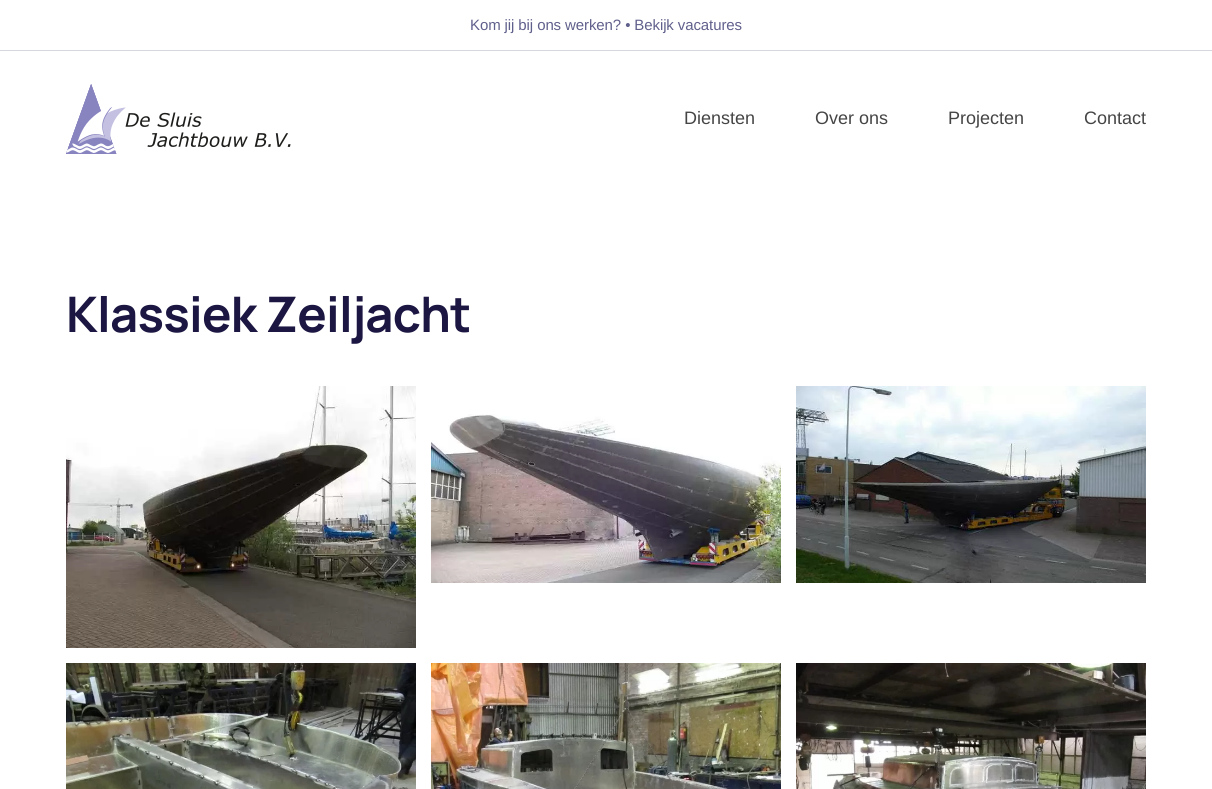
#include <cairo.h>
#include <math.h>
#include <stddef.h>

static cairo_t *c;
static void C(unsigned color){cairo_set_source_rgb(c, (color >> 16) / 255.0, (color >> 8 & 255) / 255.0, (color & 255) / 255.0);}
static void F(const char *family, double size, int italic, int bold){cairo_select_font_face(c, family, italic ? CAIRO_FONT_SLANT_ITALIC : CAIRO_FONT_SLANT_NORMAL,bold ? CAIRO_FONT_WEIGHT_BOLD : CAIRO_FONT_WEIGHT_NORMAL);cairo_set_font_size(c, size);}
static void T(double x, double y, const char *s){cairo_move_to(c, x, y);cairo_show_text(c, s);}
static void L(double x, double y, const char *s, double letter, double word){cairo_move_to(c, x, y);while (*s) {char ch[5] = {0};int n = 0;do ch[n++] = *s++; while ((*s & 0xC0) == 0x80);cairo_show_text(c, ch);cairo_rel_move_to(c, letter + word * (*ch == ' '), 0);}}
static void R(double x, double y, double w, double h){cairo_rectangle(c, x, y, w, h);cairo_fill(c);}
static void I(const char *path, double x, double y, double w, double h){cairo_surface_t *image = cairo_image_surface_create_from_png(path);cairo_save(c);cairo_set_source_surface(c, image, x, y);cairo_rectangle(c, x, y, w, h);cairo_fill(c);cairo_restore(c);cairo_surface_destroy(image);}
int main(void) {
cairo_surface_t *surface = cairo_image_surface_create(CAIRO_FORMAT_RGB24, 1212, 789);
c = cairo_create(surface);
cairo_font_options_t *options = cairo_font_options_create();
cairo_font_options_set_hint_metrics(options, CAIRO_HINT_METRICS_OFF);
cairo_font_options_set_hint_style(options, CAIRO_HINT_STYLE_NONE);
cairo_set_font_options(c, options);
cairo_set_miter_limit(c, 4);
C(0xffffff);
cairo_paint(c);
C(0xd5d8dc);
R(0,50,1212,1);
F("Liberation Sans",15,0,0);
C(0x60608c);
L(470,30,"Kom jij bij ons werken? • Bekijk vacatures",-.1,0);
I("1.png",66,84,225,70);
F("Liberation Sans",18,0,0);
C(0x454545);
T(684,124,"Diensten");
T(815,124,"Over ons");
T(948,124,"Projecten");
T(1084,124,"Contact");
F("Manrope",49,0,1);
C(0x1b1642);
L(66,332,"Klassiek Zeiljacht",-.75,0);
I("2.png",66,386,350,262);
I("3.png",431,414,350,169);
I("4.png",796,386,350,197);
I("5.png",66,663,350,126);
I("6.png",431,663,350,126);
I("7.png",796,663,350,126);
cairo_surface_write_to_png(surface, "o.png");
cairo_font_options_destroy(options);
cairo_destroy(c);
cairo_surface_destroy(surface);
return 0;
}
